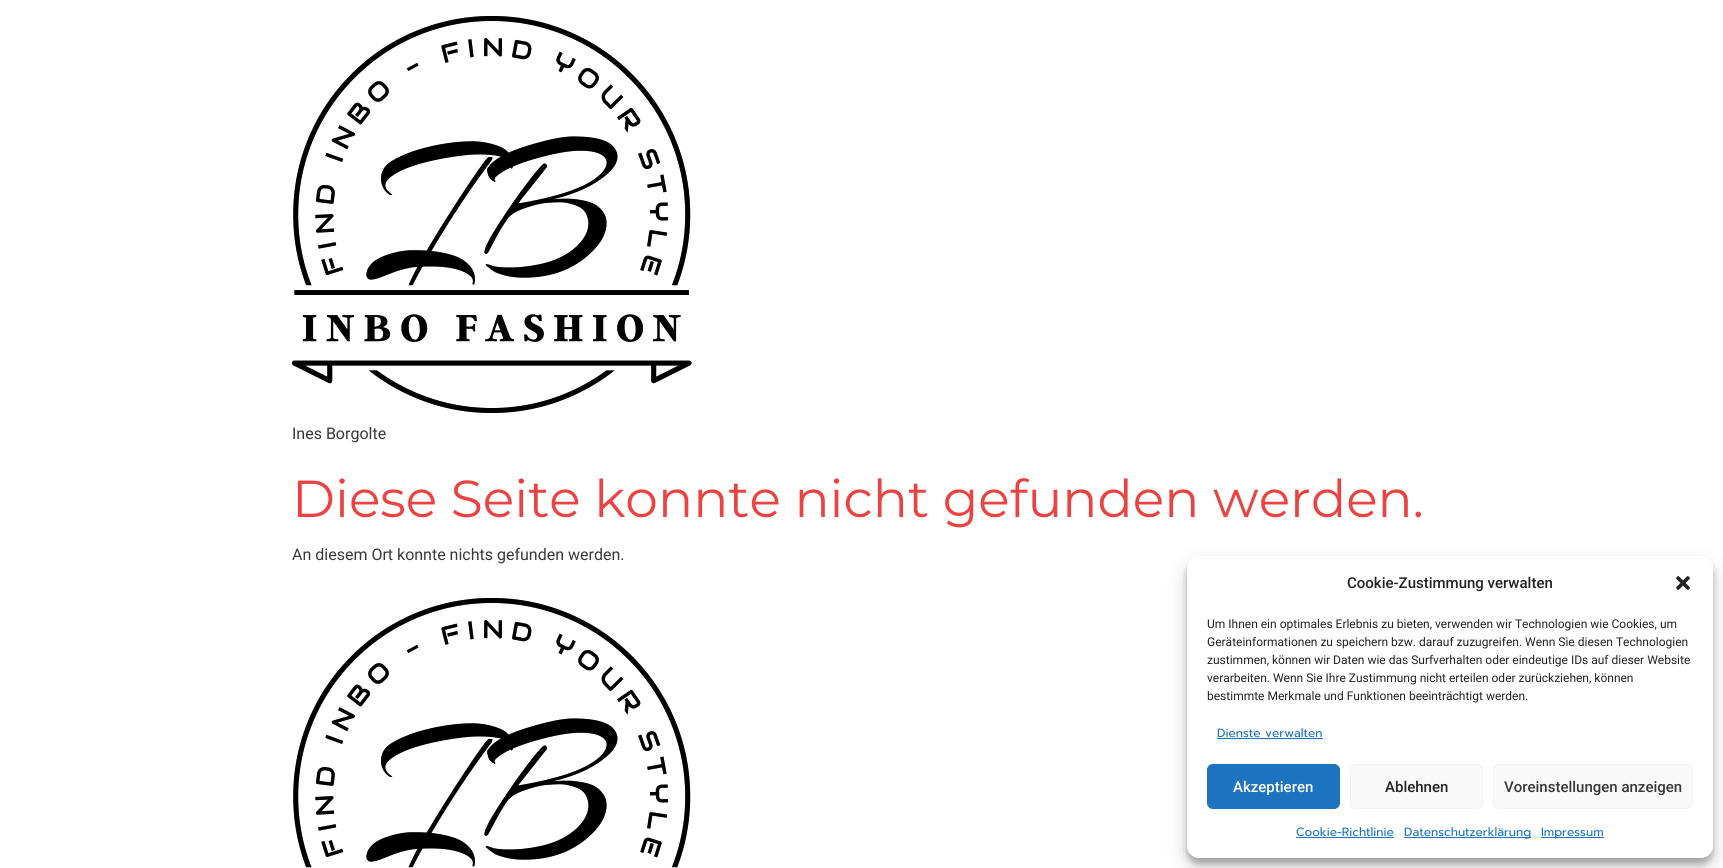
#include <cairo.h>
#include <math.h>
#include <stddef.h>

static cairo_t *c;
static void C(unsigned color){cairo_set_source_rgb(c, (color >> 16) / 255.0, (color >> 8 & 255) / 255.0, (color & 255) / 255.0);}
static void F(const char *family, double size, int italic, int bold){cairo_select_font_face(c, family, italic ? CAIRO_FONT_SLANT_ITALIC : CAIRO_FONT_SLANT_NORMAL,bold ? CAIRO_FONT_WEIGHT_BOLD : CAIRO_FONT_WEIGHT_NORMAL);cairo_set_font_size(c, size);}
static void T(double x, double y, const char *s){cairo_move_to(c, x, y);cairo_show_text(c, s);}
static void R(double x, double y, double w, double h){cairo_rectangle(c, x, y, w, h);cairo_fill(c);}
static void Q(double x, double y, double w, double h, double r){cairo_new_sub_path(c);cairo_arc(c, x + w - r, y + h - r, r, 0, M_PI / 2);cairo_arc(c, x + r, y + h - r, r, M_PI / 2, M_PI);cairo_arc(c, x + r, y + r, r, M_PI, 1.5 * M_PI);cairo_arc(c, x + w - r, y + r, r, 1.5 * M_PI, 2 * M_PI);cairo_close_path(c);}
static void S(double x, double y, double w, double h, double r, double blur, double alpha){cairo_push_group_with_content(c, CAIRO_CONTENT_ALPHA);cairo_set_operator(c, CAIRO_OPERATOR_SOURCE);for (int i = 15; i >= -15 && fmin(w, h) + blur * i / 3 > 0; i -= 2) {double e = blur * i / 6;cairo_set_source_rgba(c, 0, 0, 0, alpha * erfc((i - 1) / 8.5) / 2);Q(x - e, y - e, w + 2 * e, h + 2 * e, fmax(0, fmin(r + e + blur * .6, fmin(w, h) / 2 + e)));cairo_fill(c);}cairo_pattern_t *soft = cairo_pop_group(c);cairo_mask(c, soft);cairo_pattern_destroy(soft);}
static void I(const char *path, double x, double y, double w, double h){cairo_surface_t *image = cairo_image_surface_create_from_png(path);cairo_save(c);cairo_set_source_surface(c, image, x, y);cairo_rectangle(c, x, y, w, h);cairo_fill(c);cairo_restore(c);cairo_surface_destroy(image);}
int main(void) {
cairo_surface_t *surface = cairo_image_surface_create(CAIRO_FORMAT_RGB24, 1723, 868);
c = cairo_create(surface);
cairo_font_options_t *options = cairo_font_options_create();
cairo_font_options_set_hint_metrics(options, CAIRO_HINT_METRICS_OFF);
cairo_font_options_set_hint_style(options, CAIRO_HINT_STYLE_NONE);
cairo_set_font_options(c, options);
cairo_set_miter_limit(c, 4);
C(0xffffff);
cairo_paint(c);
I("1.png",292,16,400,397);
F("Roboto",16,0,0);
C(0x383838);
T(292,439,"Ines Borgolte");
F("Montserrat",52,0,0);
C(0xea4341);
T(292,517,"Diese Seite konnte nicht gefunden werden.");
F("Roboto",16,0,0);
C(0x383838);
T(292,560,"An diesem Ort konnte nichts gefunden werden.");
I("2.png",293,598,398,270);
C(0x000000);
S(1187,562,526,302,12,3,.23);
S(1187,566,526,302,12,10,.19);
C(0xffffff);
Q(1187,556,526,302,12);
cairo_fill(c);
F("Roboto Medium",15,0,0);
C(0x222222);
T(1347,588,"Cookie-Zustimmung verwalten");
I("3.png",1676,576,14,14);
F("Roboto",12,0,0);
T(1207,628,"Um Ihnen ein optimales Erlebnis zu bieten, verwenden wir Technologien wie Cookies, um");
T(1207,646,"Geräteinformationen zu speichern bzw. darauf zuzugreifen. Wenn Sie diesen Technologien");
T(1207,664,"zustimmen, können wir Daten wie das Surfverhalten oder eindeutige IDs auf dieser Website");
T(1207,682,"verarbeiten. Wenn Sie Ihre Zustimmung nicht erteilen oder zurückziehen, können");
T(1207,700,"bestimmte Merkmale und Funktionen beeinträchtigt werden.");
F("Prompt",12,0,0);
C(0x1e73be);
T(1217,737,"Dienste verwalten");
R(1217,738,106,1);
Q(1207.5,764.5,132,44,5.5);
cairo_fill_preserve(c);
cairo_set_line_width(c,1);
cairo_stroke(c);
F("Roboto Medium",15,0,0);
C(0xffffff);
T(1233,792,"Akzeptieren");
C(0xf9f9f9);
Q(1350.5,764.5,132,44,5.5);
cairo_fill_preserve(c);
C(0xf2f2f2);
cairo_stroke(c);
C(0x222222);
T(1385,792,"Ablehnen");
C(0xf9f9f9);
Q(1493.5,764.5,199,44,5.5);
cairo_fill_preserve(c);
C(0xf2f2f2);
cairo_stroke(c);
C(0x383838);
T(1504,792,"Voreinstellungen anzeigen");
F("Prompt",12,0,0);
C(0x1e73be);
T(1296,836,"Cookie-Richtlinie");
R(1296,837,98,1);
R(1404,837,127,1);
T(1404,836,"Datenschutzerklärung");
R(1541,837,63,1);
T(1541,836,"Impressum");
cairo_surface_write_to_png(surface, "o.png");
cairo_font_options_destroy(options);
cairo_destroy(c);
cairo_surface_destroy(surface);
return 0;
}
